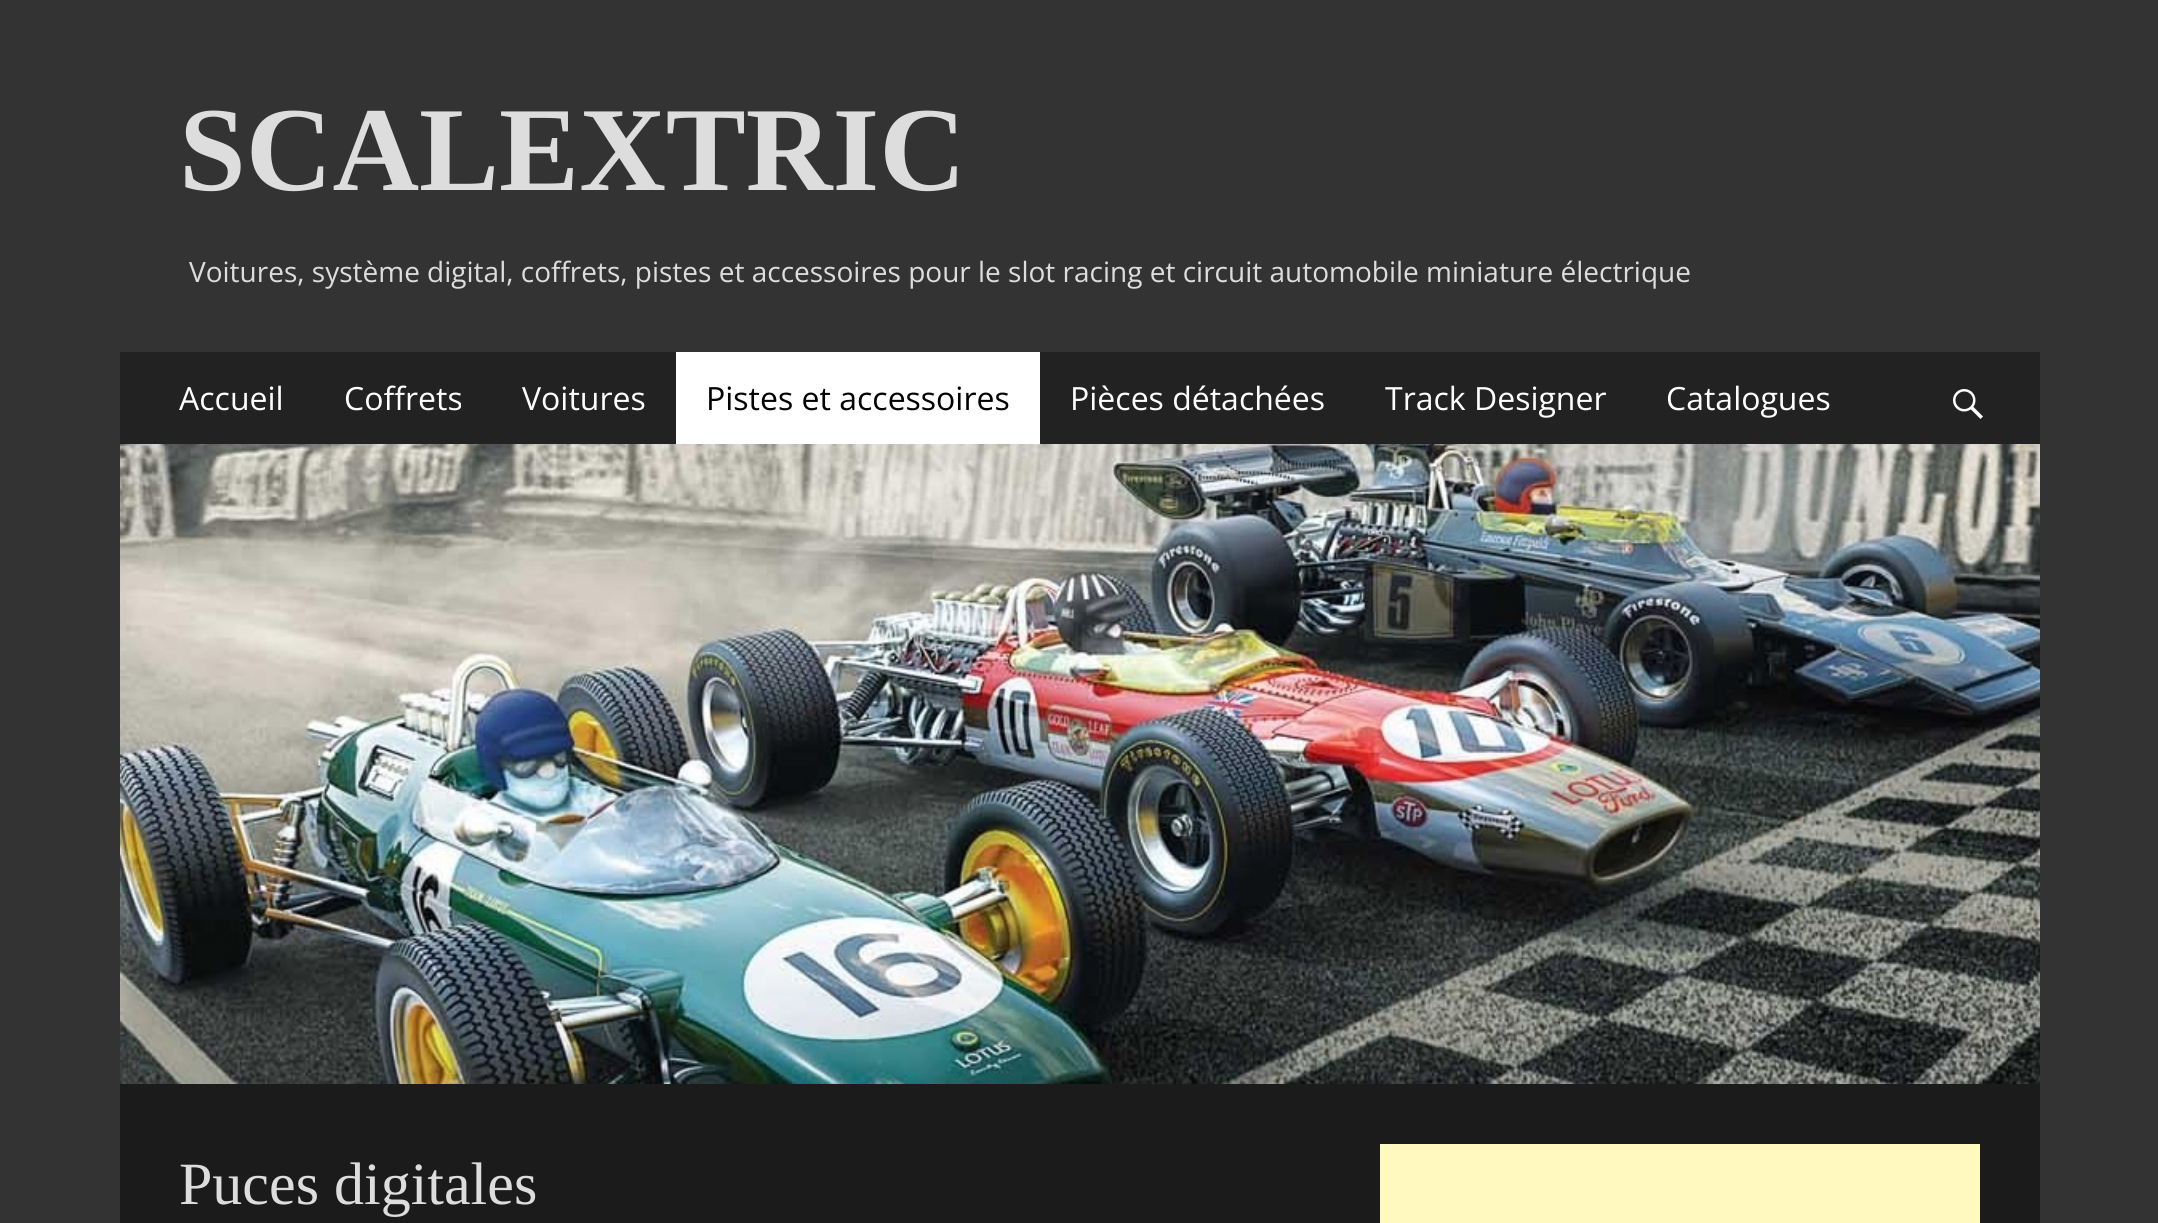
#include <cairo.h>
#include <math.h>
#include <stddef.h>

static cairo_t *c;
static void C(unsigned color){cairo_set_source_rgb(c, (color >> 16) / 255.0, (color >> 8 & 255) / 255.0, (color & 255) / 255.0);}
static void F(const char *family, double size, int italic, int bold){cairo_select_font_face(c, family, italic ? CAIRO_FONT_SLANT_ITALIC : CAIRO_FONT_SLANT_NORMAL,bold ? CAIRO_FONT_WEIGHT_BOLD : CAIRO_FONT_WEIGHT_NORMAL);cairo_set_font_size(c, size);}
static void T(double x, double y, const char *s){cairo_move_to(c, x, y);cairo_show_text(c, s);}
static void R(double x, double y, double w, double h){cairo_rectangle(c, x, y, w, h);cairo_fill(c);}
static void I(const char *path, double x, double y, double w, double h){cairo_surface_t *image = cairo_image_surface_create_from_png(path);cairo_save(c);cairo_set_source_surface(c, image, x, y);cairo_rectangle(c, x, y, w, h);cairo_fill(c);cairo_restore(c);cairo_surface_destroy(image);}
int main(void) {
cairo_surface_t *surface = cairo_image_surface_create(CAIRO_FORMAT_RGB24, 2158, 1223);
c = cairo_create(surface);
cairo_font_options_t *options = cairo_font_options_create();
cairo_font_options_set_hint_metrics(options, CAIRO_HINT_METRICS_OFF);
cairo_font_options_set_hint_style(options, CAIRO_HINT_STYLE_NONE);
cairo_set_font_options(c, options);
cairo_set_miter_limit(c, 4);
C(0x333333);
cairo_paint(c);
F("Liberation Serif",120,0,1);
C(0xdddddd);
T(179,190,"SCALEXTRIC");
F("Open Sans",28,0,0);
T(189,282,"Voitures, système digital, coffrets, pistes et accessoires pour le slot racing et circuit automobile miniature électrique");
C(0x222222);
R(120,352,1920,92);
F("Open Sans",32,0,0);
C(0xffffff);
T(179,410,"Accueil");
T(344,410,"Coffrets");
T(522,410,"Voitures");
R(676,352,364,92);
C(0x000000);
T(706,410,"Pistes et accessoires");
C(0xffffff);
T(1070,410,"Pièces détachées");
T(1385,410,"Track Designer");
T(1666,410,"Catalogues");
I("1.png",1953,389,30,30);
I("2.png",120,444,1920,640);
C(0x1b1b1b);
R(120,1084,1920,139);
F("Liberation Serif",60,0,0);
C(0xdddddd);
T(179,1204,"Puces digitales");
C(0xfff9c0);
R(1380,1144,600,79);
cairo_surface_write_to_png(surface, "o.png");
cairo_font_options_destroy(options);
cairo_destroy(c);
cairo_surface_destroy(surface);
return 0;
}
